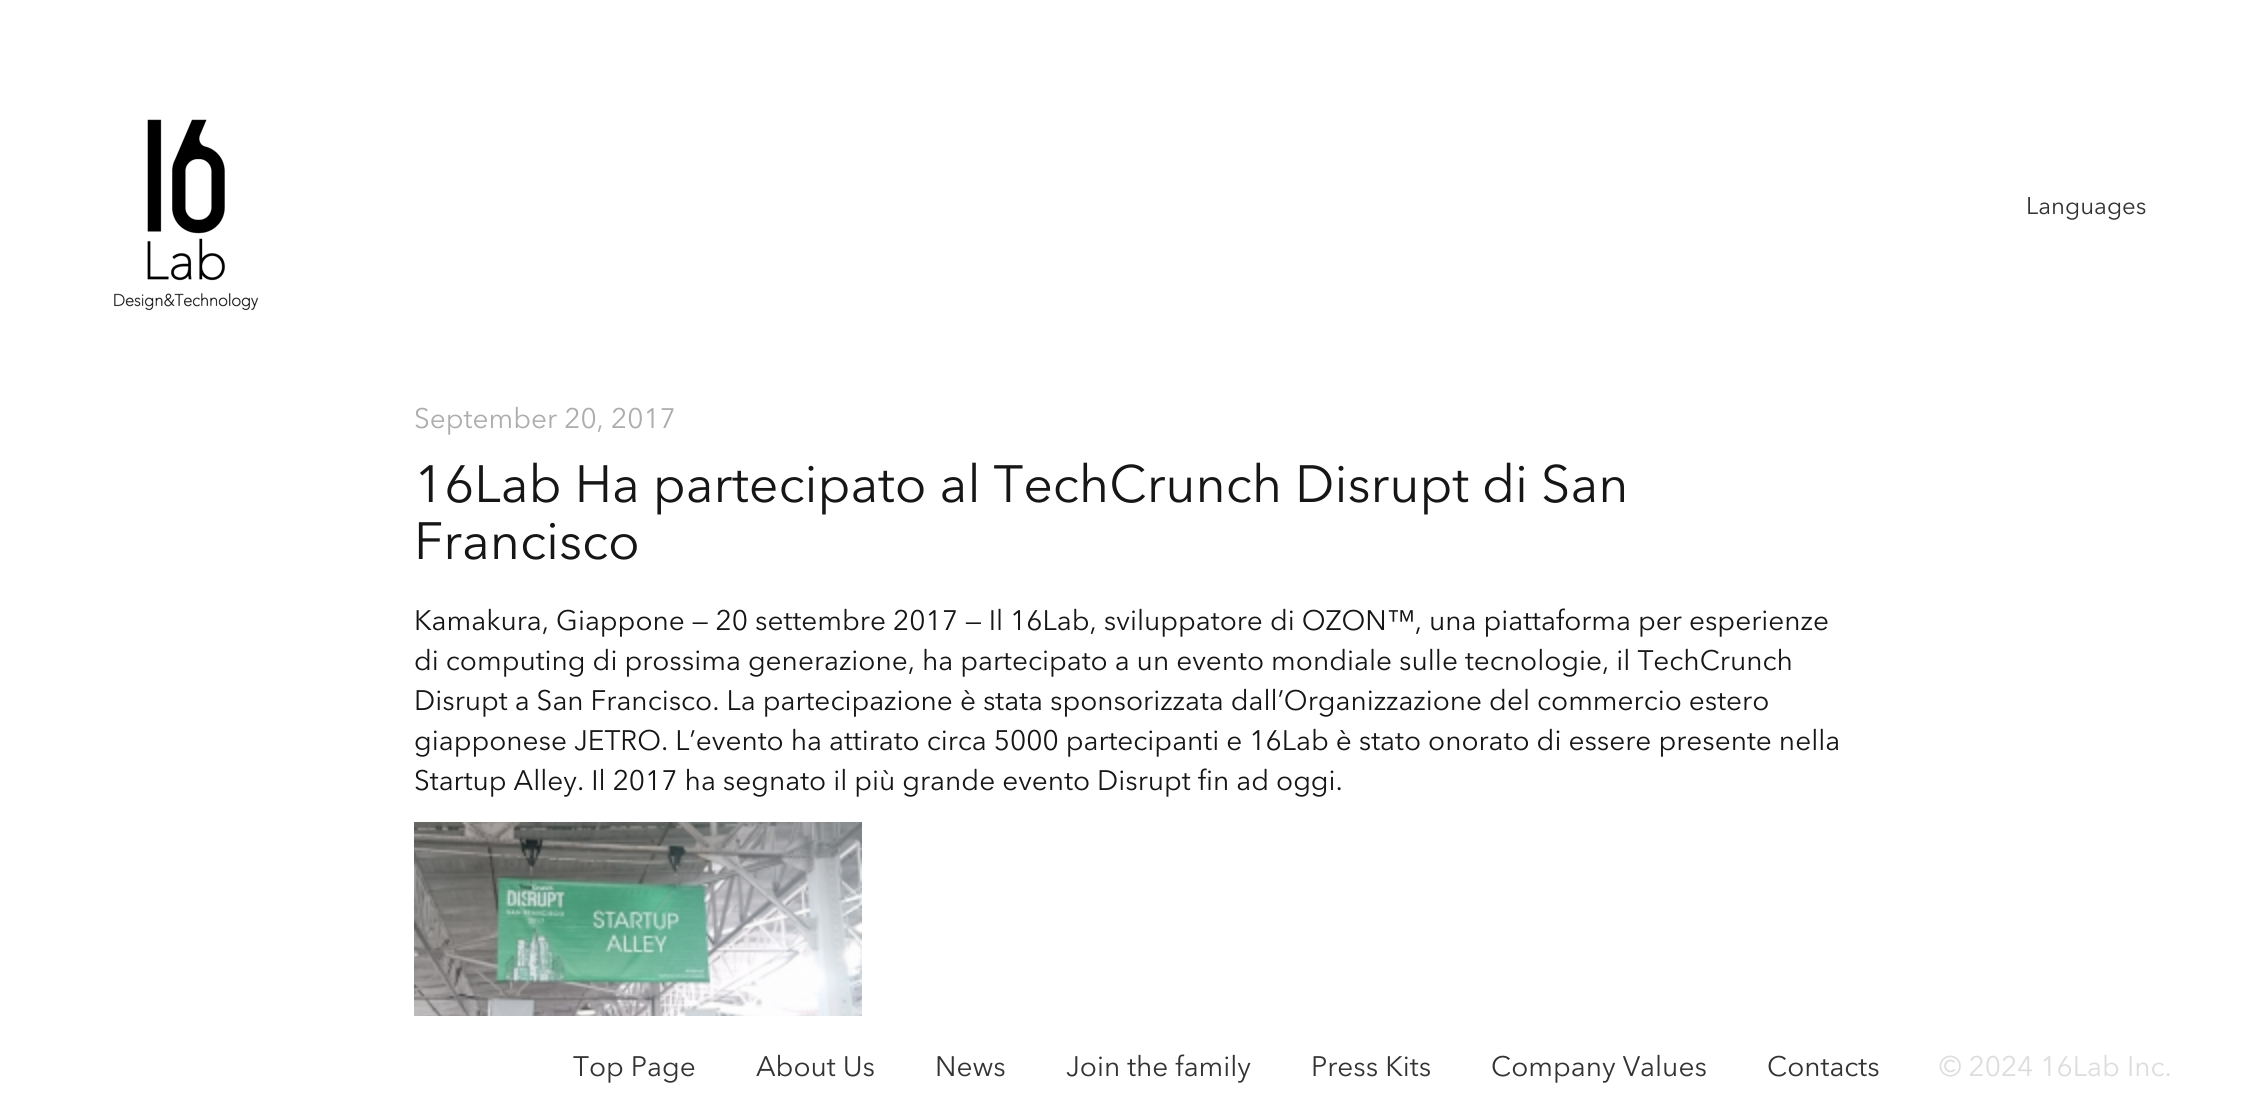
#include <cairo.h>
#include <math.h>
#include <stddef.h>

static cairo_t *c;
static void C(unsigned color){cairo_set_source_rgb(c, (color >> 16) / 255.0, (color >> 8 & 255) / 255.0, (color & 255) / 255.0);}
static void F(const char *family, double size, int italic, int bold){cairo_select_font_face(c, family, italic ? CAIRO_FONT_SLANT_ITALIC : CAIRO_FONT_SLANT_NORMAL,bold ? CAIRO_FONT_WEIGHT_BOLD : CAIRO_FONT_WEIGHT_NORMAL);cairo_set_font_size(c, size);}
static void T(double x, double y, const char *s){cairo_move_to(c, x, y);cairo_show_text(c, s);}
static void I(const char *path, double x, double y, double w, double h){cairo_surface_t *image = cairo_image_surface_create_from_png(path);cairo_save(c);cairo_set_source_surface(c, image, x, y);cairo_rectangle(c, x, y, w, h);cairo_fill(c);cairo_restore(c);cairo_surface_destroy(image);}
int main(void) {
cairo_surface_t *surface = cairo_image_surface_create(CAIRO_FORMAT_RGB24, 2268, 1113);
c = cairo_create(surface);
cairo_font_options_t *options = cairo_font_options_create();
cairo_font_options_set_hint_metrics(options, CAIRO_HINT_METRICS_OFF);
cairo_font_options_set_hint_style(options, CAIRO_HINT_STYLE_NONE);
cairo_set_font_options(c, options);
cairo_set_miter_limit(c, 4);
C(0xffffff);
cairo_paint(c);
I("1.png",114,119,145,192);
F("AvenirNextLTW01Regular",24,0,0);
C(0x333333);
T(2026,214,"Languages");
F("AvenirNextLTW01Regular",28,0,0);
C(0x161616);
T(414,630,"Kamakura, Giappone — 20 settembre 2017 — Il 16Lab, sviluppatore di OZON™, una piattaforma per esperienze");
T(414,670,"di computing di prossima generazione, ha partecipato a un evento mondiale sulle tecnologie, il TechCrunch");
T(414,710,"Disrupt a San Francisco. La partecipazione è stata sponsorizzata dall’Organizzazione del commercio estero");
T(414,750,"giapponese JETRO. L’evento ha attirato circa 5000 partecipanti e 16Lab è stato onorato di essere presente nella");
T(414,790,"Startup Alley. Il 2017 ha segnato il più grande evento Disrupt fin ad oggi.");
I("2.png",414,822,448,194);
C(0xadadad);
T(414,428,"September 20, 2017");
F("AvenirNextLTW01Regular",52,0,0);
C(0x161616);
T(414,502,"16Lab Ha partecipato al TechCrunch Disrupt di San");
T(414,559,"Francisco");
F("AvenirNextLTW01Regular",28,0,0);
C(0x333333);
T(573,1076,"Top Page");
T(756,1076,"About Us");
T(935,1076,"News");
T(1066,1076,"Join the family");
T(1311,1076,"Press Kits");
T(1491,1076,"Company Values");
T(1767,1076,"Contacts");
C(0xdddddd);
T(1939,1076,"© 2024 16Lab Inc.");
cairo_surface_write_to_png(surface, "o.png");
cairo_font_options_destroy(options);
cairo_destroy(c);
cairo_surface_destroy(surface);
return 0;
}
